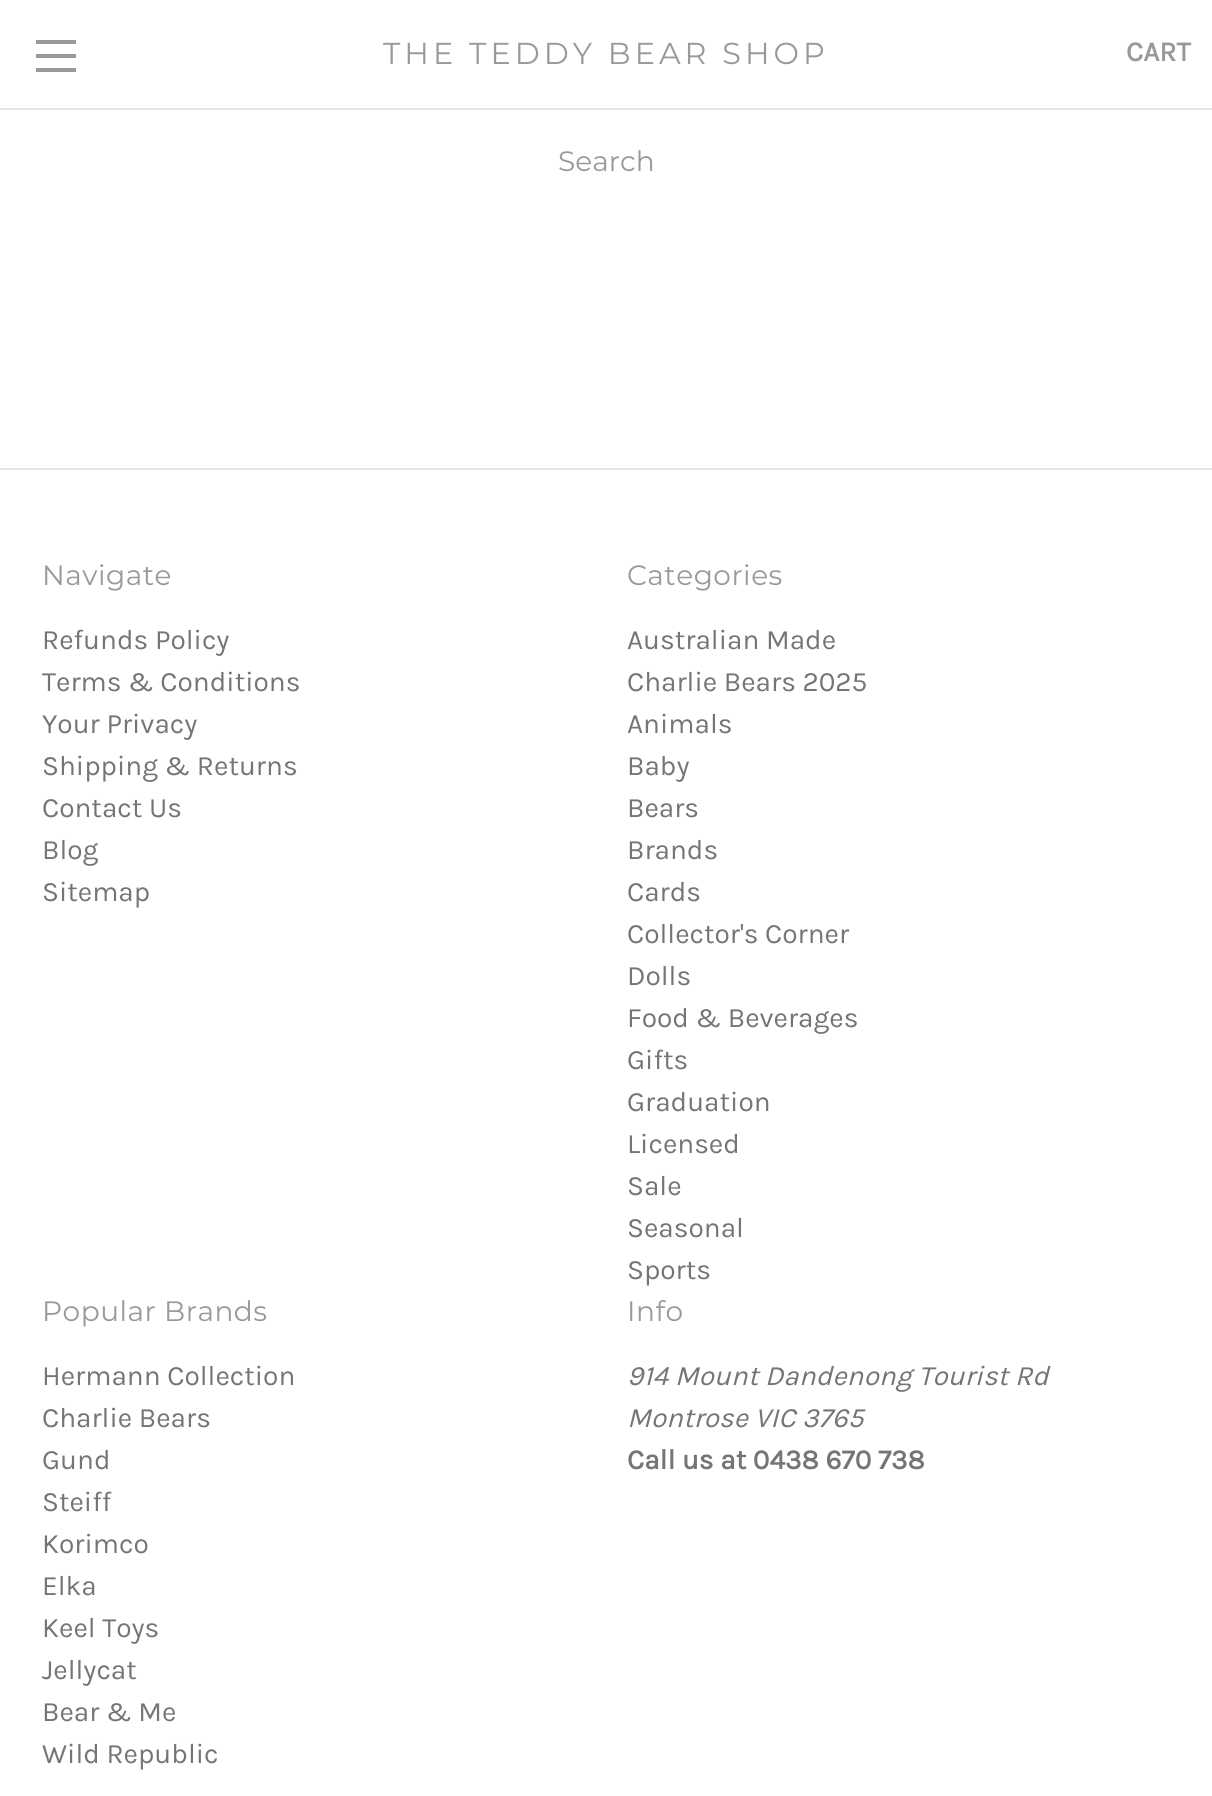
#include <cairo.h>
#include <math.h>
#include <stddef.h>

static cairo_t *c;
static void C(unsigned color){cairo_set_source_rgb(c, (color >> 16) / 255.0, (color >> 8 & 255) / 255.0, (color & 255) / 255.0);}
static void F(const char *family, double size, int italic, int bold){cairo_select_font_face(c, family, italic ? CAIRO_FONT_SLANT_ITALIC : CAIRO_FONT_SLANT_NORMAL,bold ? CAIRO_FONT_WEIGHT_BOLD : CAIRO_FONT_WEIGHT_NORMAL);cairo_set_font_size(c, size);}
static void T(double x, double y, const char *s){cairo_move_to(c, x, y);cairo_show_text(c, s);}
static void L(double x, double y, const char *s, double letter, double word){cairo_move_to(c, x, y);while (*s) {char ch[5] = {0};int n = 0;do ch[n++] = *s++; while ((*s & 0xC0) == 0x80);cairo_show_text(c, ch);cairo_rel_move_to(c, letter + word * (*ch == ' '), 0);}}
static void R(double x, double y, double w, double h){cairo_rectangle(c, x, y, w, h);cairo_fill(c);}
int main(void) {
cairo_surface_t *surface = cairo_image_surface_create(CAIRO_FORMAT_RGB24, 1212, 1796);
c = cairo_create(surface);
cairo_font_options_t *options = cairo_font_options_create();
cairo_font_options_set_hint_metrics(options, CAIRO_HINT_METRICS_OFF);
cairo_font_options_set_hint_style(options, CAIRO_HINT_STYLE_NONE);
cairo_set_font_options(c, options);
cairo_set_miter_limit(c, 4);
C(0xffffff);
cairo_paint(c);
C(0xe5e5e5);
R(0,108,1212,2);
C(0x999999);
R(36,54,40,4);
R(36,40,40,4);
R(36,68,40,4);
F("Montserrat",30.25,0,0);
L(383,64,"THE TEDDY BEAR SHOP",4,0);
F("Karla",28,0,1);
T(1126,61,"CART");
F("Montserrat",28,0,0);
T(558,171,"Search");
C(0xe5e5e5);
R(0,468,1212,2);
C(0x999999);
L(42,585,"Navigate",.5,0);
F("Karla",28,0,0);
C(0x757575);
T(42,649,"Refunds Policy");
T(42,691,"Terms & Conditions");
T(42,733,"Your Privacy");
T(42,775,"Shipping & Returns");
T(42,817,"Contact Us");
T(42,859,"Blog");
T(42,901,"Sitemap");
F("Montserrat",28,0,0);
C(0x999999);
L(627,585,"Categories",.5,0);
F("Karla",28,0,0);
C(0x757575);
T(627,649,"Australian Made");
T(627,691,"Charlie Bears 2025");
T(627,733,"Animals");
T(627,775,"Baby");
T(627,817,"Bears");
T(627,859,"Brands");
T(627,901,"Cards");
T(627,943,"Collector's Corner");
T(627,985,"Dolls");
T(627,1027,"Food & Beverages");
T(627,1069,"Gifts");
T(627,1111,"Graduation");
T(627,1153,"Licensed");
T(627,1195,"Sale");
T(627,1237,"Seasonal");
T(627,1279,"Sports");
F("Montserrat",28,0,0);
C(0x999999);
L(42,1321,"Popular Brands",.5,0);
F("Karla",28,0,0);
C(0x757575);
T(42,1385,"Hermann Collection");
T(42,1427,"Charlie Bears");
T(42,1469,"Gund");
T(42,1511,"Steiff");
T(42,1553,"Korimco");
T(42,1595,"Elka");
T(42,1637,"Keel Toys");
T(42,1679,"Jellycat");
T(42,1721,"Bear & Me");
T(42,1763,"Wild Republic");
F("Montserrat",28,0,0);
C(0x999999);
L(627,1321,"Info",.5,0);
F("Karla",28,1,0);
C(0x757575);
T(627,1385,"914 Mount Dandenong Tourist Rd");
T(627,1427,"Montrose VIC 3765");
F("Karla",28,0,1);
T(627,1469,"Call us at 0438 670 738");
cairo_surface_write_to_png(surface, "o.png");
cairo_font_options_destroy(options);
cairo_destroy(c);
cairo_surface_destroy(surface);
return 0;
}
